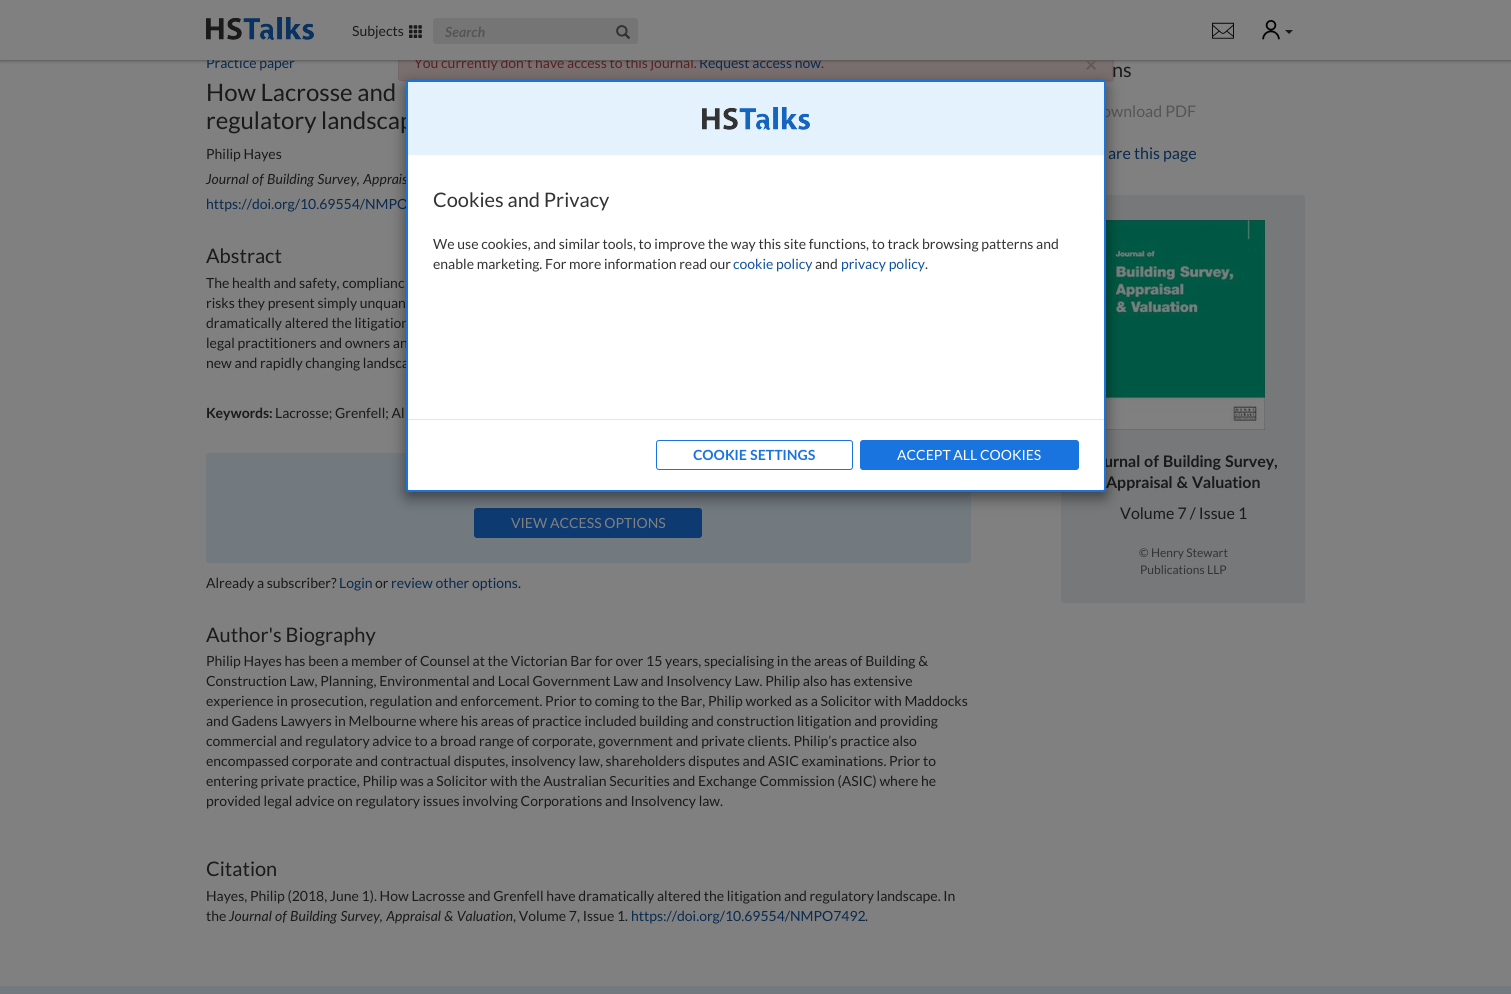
#include <cairo.h>
#include <math.h>
#include <stddef.h>

static cairo_t *c;
static void C(unsigned color){cairo_set_source_rgb(c, (color >> 16) / 255.0, (color >> 8 & 255) / 255.0, (color & 255) / 255.0);}
static void F(const char *family, double size, int italic, int bold){cairo_select_font_face(c, family, italic ? CAIRO_FONT_SLANT_ITALIC : CAIRO_FONT_SLANT_NORMAL,bold ? CAIRO_FONT_WEIGHT_BOLD : CAIRO_FONT_WEIGHT_NORMAL);cairo_set_font_size(c, size);}
static void T(double x, double y, const char *s){cairo_move_to(c, x, y);cairo_show_text(c, s);}
static void R(double x, double y, double w, double h){cairo_rectangle(c, x, y, w, h);cairo_fill(c);}
static void Q(double x, double y, double w, double h, double r){cairo_new_sub_path(c);cairo_arc(c, x + w - r, y + h - r, r, 0, M_PI / 2);cairo_arc(c, x + r, y + h - r, r, M_PI / 2, M_PI);cairo_arc(c, x + r, y + r, r, M_PI, 1.5 * M_PI);cairo_arc(c, x + w - r, y + r, r, 1.5 * M_PI, 2 * M_PI);cairo_close_path(c);}
static void S(double x, double y, double w, double h, double r, double blur, double alpha){cairo_push_group_with_content(c, CAIRO_CONTENT_ALPHA);cairo_set_operator(c, CAIRO_OPERATOR_SOURCE);for (int i = 15; i >= -15 && fmin(w, h) + blur * i / 3 > 0; i -= 2) {double e = blur * i / 6;cairo_set_source_rgba(c, 0, 0, 0, alpha * erfc((i - 1) / 8.5) / 2);Q(x - e, y - e, w + 2 * e, h + 2 * e, fmax(0, fmin(r + e + blur * .6, fmin(w, h) / 2 + e)));cairo_fill(c);}cairo_pattern_t *soft = cairo_pop_group(c);cairo_mask(c, soft);cairo_pattern_destroy(soft);}
static void I(const char *path, double x, double y, double w, double h){cairo_surface_t *image = cairo_image_surface_create_from_png(path);cairo_save(c);cairo_set_source_surface(c, image, x, y);cairo_rectangle(c, x, y, w, h);cairo_fill(c);cairo_restore(c);cairo_surface_destroy(image);}
int main(void) {
cairo_surface_t *surface = cairo_image_surface_create(CAIRO_FORMAT_RGB24, 1511, 994);
c = cairo_create(surface);
cairo_font_options_t *options = cairo_font_options_create();
cairo_font_options_set_hint_metrics(options, CAIRO_HINT_METRICS_OFF);
cairo_font_options_set_hint_style(options, CAIRO_HINT_STYLE_NONE);
cairo_set_font_options(c, options);
cairo_set_miter_limit(c, 4);
C(0x808080);
cairo_paint(c);
C(0x000000);
S(405,52,707,28,0,2,.4);
C(0x796f6f);
Q(398.5,45.5,714,35,2.5);
cairo_fill_preserve(c);
C(0x766669);
cairo_set_line_width(c,1);
cairo_stroke(c);
C(0x3c3c3c);
S(0,0,1511,60,0,2,1);
F("Lato",14,0,0);
C(0x09294e);
T(206,68,"Practice paper");
C(0x552221);
T(414,68,"You currently don't have access to this journal.");
C(0x09294e);
T(699,68,"Request access now");
C(0x808080);
R(0,0,1511,60);
I("1.png",206,17,108,23);
C(0x1a1a1a);
T(352,36,"Subjects");
I("2.png",409,25,13,13);
C(0x757575);
Q(433,18,205,26,3);
cairo_fill(c);
F("Lato",14,1,1);
C(0x555555);
T(445,37,"Search");
I("3.png",616,25,14,14);
I("4.png",1212,22,22,17);
I("5.png",1262,20,18,20);
C(0x1a1a1a);
cairo_new_path(c);
cairo_move_to(c,1285,30);
cairo_line_to(c,1293,30);
cairo_line_to(c,1289,34);
cairo_close_path(c);
cairo_fill(c);
F("Lato",24,0,0);
T(206,101,"How Lacrosse and");
T(206,129,"regulatory landscap");
F("Lato",14,0,0);
T(206,159,"Philip Hayes");
F("Lato",14,1,0);
T(206,184,"Journal of Building Survey, Apprais");
F("Lato",14,0,0);
C(0x09294e);
T(206,209,"https://doi.org/10.69554/NMPO");
F("Lato",20,0,0);
C(0x1a1a1a);
T(206,263,"Abstract");
F("Lato",14,0,0);
T(206,288,"The health and safety, complianc");
T(206,308,"risks they present simply unquan");
T(206,328,"dramatically altered the litigation");
T(206,348,"legal practitioners and owners an");
T(206,368,"new and rapidly changing landsca");
F("Lato",14,0,1);
T(206,418,"Keywords:");
F("Lato",14,0,0);
T(275,418,"Lacrosse; Grenfell; Al");
C(0x72797f);
Q(206,453,765,110,3);
cairo_fill(c);
C(0x0d3a70);
Q(474.5,508.5,227,29,2.5);
cairo_fill_preserve(c);
cairo_stroke(c);
C(0x808080);
T(511,528,"VIEW ACCESS OPTIONS");
C(0x1a1a1a);
T(206,588,"Already a subscriber?");
C(0x09294e);
T(339,588,"Login");
C(0x1a1a1a);
T(375,588,"or");
C(0x09294e);
T(391,588,"review other options");
C(0x1a1a1a);
T(518,588,".");
F("Lato",20,0,0);
T(206,642,"Author's Biography");
F("Lato",14,0,0);
T(206,666,"Philip Hayes has been a member of Counsel at the Victorian Bar for over 15 years, specialising in the areas of Building &");
T(206,686,"Construction Law, Planning, Environmental and Local Government Law and Insolvency Law. Philip also has extensive");
T(206,706,"experience in prosecution, regulation and enforcement. Prior to coming to the Bar, Philip worked as a Solicitor with Maddocks");
T(206,726,"and Gadens Lawyers in Melbourne where his areas of practice included building and construction litigation and providing");
T(206,746,"commercial and regulatory advice to a broad range of corporate, government and private clients. Philip’s practice also");
T(206,766,"encompassed corporate and contractual disputes, insolvency law, shareholders disputes and ASIC examinations. Prior to");
T(206,786,"entering private practice, Philip was a Solicitor with the Australian Securities and Exchange Commission (ASIC) where he");
T(206,806,"provided legal advice on regulatory issues involving Corporations and Insolvency law.");
F("Lato",20,0,0);
T(206,876,"Citation");
F("Lato",14,0,0);
T(206,901,"Hayes, Philip (2018, June 1). How Lacrosse and Grenfell have dramatically altered the litigation and regulatory landscape. In");
T(206,921,"the");
F("Lato",14,1,0);
T(229,921,"Journal of Building Survey, Appraisal & Valuation");
F("Lato",14,0,0);
T(513,921,", Volume 7, Issue 1.");
C(0x09294e);
T(631,921,"https://doi.org/10.69554/NMPO7492");
C(0x1a1a1a);
T(865,921,".");
F("Lato",20,0,0);
T(1112,77,"ns");
F("Lato",16,0,0);
C(0x555555);
T(1102,117,"ownload PDF");
C(0x09294e);
T(1108,159,"are this page");
C(0x767879);
Q(1061,195,244,408,3);
cairo_fill(c);
I("6.png",1106,220,159,210);
F("Lato",16,0,1);
C(0x1a1a1a);
T(1104,467,"urnal of Building Survey,");
T(1106,488,"Appraisal & Valuation");
F("Lato",16,0,0);
T(1120,519,"Volume 7 / Issue 1");
F("Lato",12,0,0);
C(0x333333);
T(1139,557,"© Henry Stewart");
T(1140,574,"Publications LLP");
F("Lato",14,0,0);
C(0x552221);
T(821,68,".");
F("Lato",21,0,1);
C(0x615959);
T(1085,72,"×");
C(0x72797f);
R(0,986,1511,8);
C(0x000000);
S(406,85,700,412,3,7.5,.5);
C(0xffffff);
Q(407,81,698,410,2);
cairo_fill_preserve(c);
C(0x1974e0);
cairo_set_line_width(c,2);
cairo_stroke(c);
C(0xe3f2fd);
R(408,82,696,73);
I("7.png",702,107,108,23);
F("Lato",20,0,0);
C(0x333333);
T(433,207,"Cookies and Privacy");
F("Lato",14,0,0);
T(433,249,"We use cookies, and similar tools, to improve the way this site functions, to track browsing patterns and");
T(433,269,"enable marketing. For more information read our");
C(0x11529b);
T(733,269,"cookie policy");
C(0x333333);
T(815,269,"and");
C(0x11529b);
T(841,269,"privacy policy");
C(0x333333);
T(925,269,".");
C(0xe5e5e5);
R(408,419,696,1);
Q(656.5,440.5,196,29,2.5);
C(0x1974e0);
cairo_set_line_width(c,1);
cairo_stroke(c);
F("Lato",14,0,1);
T(693,460,"COOKIE SETTINGS");
Q(860.5,440.5,218,29,2.5);
cairo_fill_preserve(c);
cairo_stroke(c);
F("Lato",14,0,0);
C(0xffffff);
T(897,460,"ACCEPT ALL COOKIES");
cairo_surface_write_to_png(surface, "o.png");
cairo_font_options_destroy(options);
cairo_destroy(c);
cairo_surface_destroy(surface);
return 0;
}
